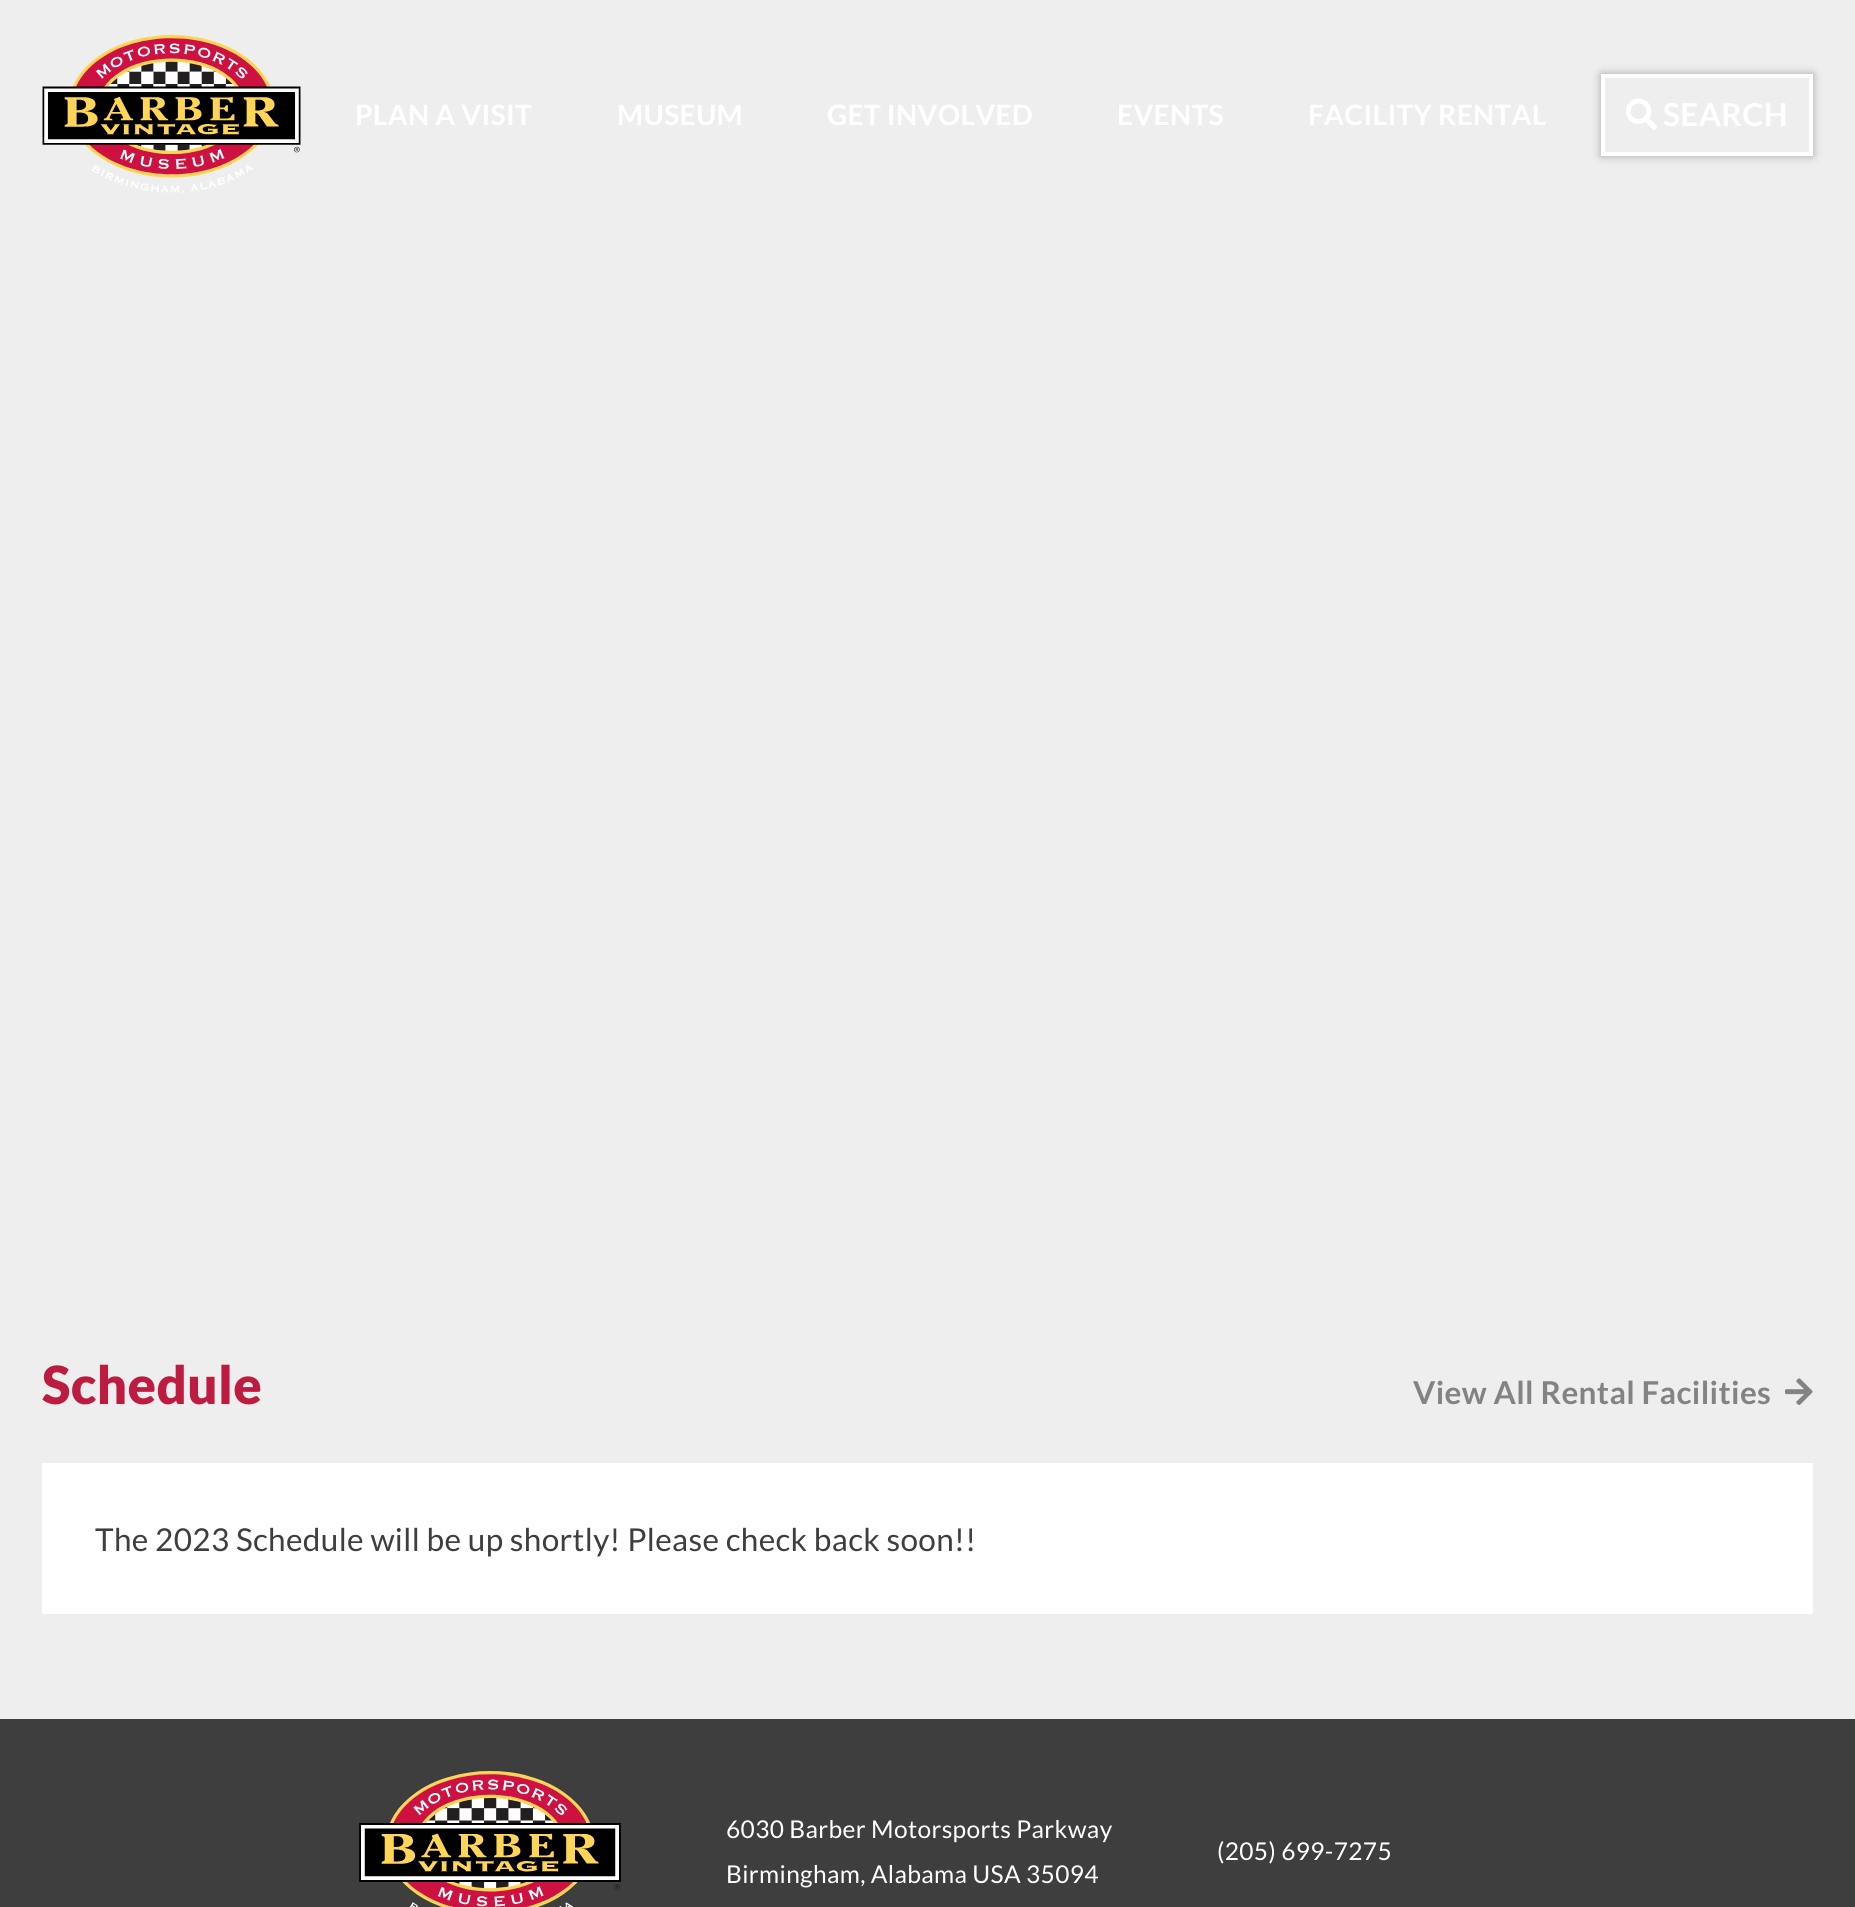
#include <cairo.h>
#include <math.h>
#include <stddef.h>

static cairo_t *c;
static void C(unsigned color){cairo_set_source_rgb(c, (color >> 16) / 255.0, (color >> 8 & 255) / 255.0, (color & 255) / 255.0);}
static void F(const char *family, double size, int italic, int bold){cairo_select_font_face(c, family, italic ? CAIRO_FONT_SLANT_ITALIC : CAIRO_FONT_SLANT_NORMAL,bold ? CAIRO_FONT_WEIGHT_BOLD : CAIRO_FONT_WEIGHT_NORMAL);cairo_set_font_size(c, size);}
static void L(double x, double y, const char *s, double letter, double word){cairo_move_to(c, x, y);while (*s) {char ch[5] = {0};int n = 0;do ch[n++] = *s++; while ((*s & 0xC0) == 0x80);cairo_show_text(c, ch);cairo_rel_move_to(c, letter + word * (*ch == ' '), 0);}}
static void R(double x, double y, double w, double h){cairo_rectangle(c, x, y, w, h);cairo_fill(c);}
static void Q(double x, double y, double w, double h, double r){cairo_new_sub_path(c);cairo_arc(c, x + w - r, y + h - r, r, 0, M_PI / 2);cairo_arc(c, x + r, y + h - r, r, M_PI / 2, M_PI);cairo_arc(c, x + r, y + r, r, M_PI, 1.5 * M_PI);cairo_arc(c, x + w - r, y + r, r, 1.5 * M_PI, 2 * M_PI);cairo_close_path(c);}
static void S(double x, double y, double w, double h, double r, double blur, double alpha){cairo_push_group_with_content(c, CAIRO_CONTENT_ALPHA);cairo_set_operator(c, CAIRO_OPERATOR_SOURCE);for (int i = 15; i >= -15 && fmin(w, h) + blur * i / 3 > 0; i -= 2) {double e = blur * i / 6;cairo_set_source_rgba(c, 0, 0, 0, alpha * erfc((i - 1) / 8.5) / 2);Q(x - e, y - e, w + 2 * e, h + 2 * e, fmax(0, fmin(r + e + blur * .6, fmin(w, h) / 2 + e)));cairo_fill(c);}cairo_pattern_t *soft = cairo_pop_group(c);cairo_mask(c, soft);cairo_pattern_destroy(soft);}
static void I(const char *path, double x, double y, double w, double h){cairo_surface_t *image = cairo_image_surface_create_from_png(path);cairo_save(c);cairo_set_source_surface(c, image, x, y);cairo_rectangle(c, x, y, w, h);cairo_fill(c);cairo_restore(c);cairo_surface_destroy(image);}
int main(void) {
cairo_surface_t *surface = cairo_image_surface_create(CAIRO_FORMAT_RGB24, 1855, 1907);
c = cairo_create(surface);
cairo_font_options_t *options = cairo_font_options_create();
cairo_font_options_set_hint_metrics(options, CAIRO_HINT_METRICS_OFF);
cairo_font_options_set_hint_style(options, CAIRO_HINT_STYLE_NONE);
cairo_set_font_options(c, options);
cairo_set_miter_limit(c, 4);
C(0xeeeeee);
cairo_paint(c);
I("1.png",42,35,259,159);
F("Lato",28,0,1);
C(0xffffff);
L(355,125,"PLAN A VISIT",.35,0);
L(617,125,"MUSEUM",.35,0);
L(827,125,"GET INVOLVED",.35,0);
L(1117,125,"EVENTS",.35,0);
L(1308,125,"FACILITY RENTAL",.35,0);
cairo_save(c);
cairo_set_fill_rule(c,CAIRO_FILL_RULE_EVEN_ODD);
cairo_new_path(c);
cairo_move_to(c,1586,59);
cairo_line_to(c,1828,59);
cairo_line_to(c,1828,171);
cairo_line_to(c,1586,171);
cairo_close_path(c);
cairo_move_to(c,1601,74);
cairo_line_to(c,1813,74);
cairo_line_to(c,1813,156);
cairo_line_to(c,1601,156);
cairo_close_path(c);
cairo_clip(c);
C(0x000000);
S(1601,74,212,82,0,4.5,.3);
cairo_restore(c);
cairo_rectangle(c,1603,76,208,78);
cairo_set_line_width(c,4);
cairo_stroke(c);
I("2.png",1626,98,31,32);
F("Lato",31.5,0,1);
L(1663,126,"SEARCH",.35,0);
F("Lato Black",52.5,0,0);
C(0xbb1c3f);
L(42,1404,"Schedule",.35,0);
F("Lato",31.5,0,1);
C(0x838383);
L(1413,1404,"View All Rental Facilities",.35,0);
I("3.png",1785,1378,28,27);
C(0xffffff);
R(42,1463,1771,151);
F("Lato",31.5,0,0);
C(0x3e3e3e);
L(95,1551,"The 2023 Schedule will be up shortly! Please check back soon!!",.35,0);
R(0,1719,1855,188);
I("4.png",359,1771,262,136);
F("Lato",24.5,0,0);
C(0xffffff);
L(726,1838,"6030 Barber Motorsports Parkway",.35,0);
L(726,1883,"Birmingham, Alabama USA 35094",.35,0);
L(1217,1860,"(205) 699-7275",.35,0);
cairo_surface_write_to_png(surface, "o.png");
cairo_font_options_destroy(options);
cairo_destroy(c);
cairo_surface_destroy(surface);
return 0;
}
